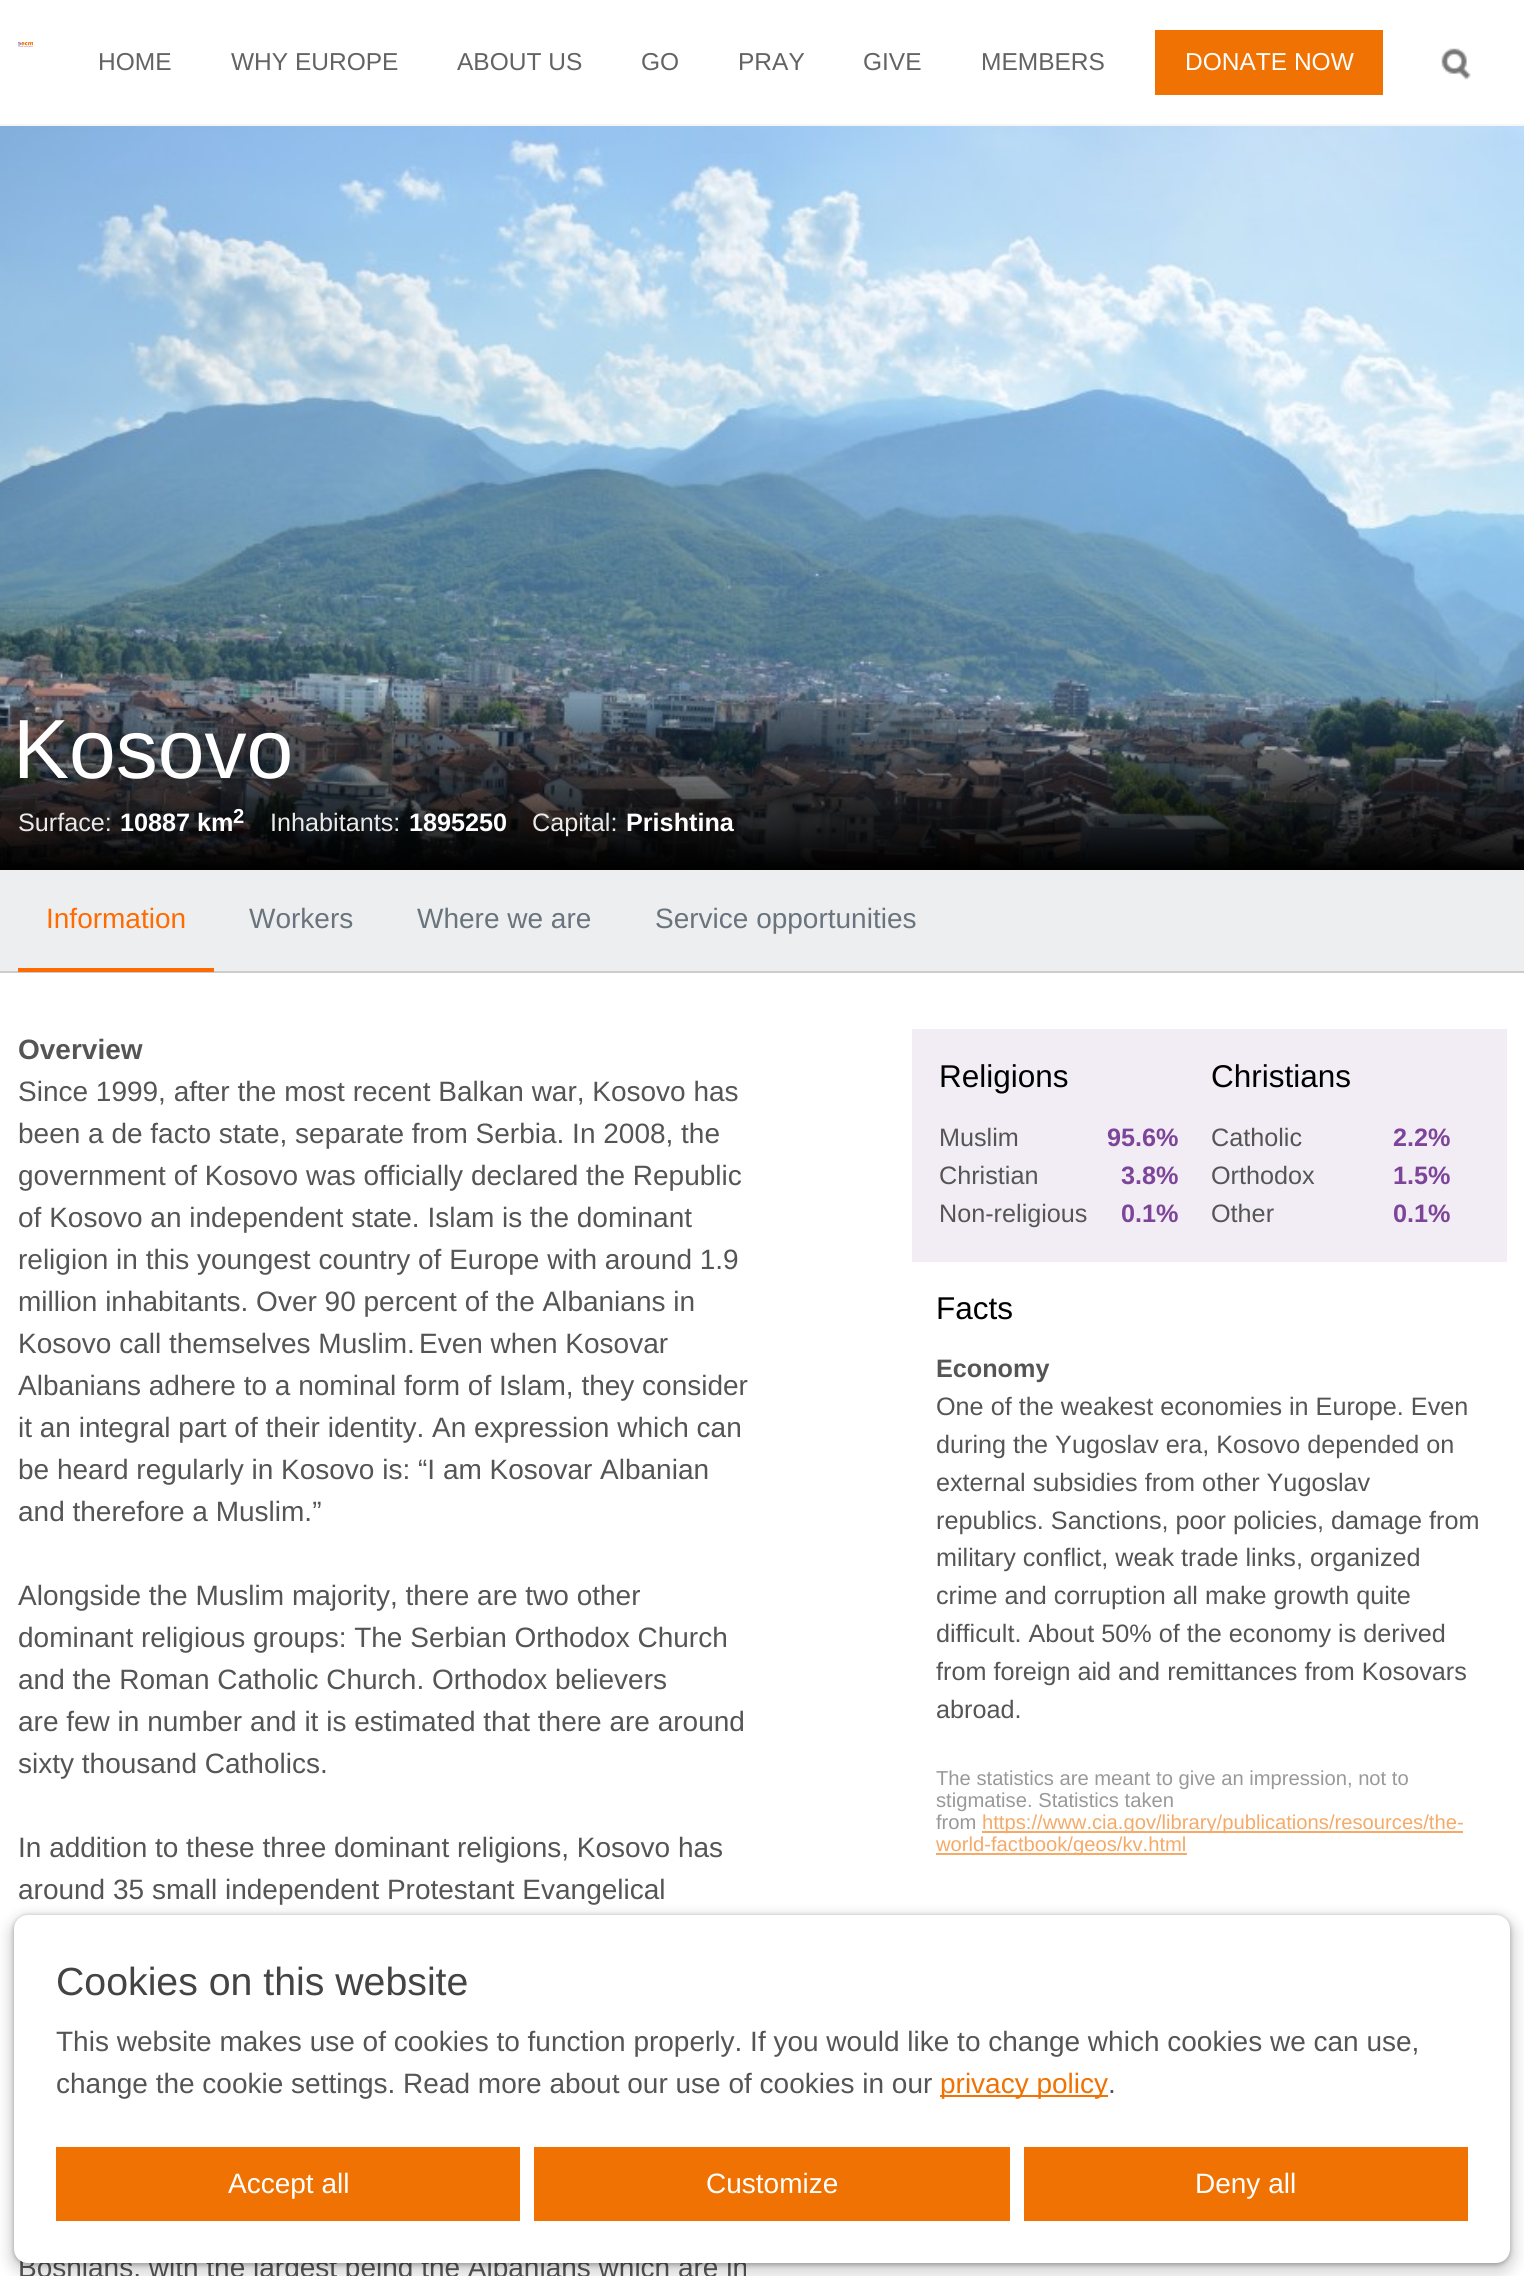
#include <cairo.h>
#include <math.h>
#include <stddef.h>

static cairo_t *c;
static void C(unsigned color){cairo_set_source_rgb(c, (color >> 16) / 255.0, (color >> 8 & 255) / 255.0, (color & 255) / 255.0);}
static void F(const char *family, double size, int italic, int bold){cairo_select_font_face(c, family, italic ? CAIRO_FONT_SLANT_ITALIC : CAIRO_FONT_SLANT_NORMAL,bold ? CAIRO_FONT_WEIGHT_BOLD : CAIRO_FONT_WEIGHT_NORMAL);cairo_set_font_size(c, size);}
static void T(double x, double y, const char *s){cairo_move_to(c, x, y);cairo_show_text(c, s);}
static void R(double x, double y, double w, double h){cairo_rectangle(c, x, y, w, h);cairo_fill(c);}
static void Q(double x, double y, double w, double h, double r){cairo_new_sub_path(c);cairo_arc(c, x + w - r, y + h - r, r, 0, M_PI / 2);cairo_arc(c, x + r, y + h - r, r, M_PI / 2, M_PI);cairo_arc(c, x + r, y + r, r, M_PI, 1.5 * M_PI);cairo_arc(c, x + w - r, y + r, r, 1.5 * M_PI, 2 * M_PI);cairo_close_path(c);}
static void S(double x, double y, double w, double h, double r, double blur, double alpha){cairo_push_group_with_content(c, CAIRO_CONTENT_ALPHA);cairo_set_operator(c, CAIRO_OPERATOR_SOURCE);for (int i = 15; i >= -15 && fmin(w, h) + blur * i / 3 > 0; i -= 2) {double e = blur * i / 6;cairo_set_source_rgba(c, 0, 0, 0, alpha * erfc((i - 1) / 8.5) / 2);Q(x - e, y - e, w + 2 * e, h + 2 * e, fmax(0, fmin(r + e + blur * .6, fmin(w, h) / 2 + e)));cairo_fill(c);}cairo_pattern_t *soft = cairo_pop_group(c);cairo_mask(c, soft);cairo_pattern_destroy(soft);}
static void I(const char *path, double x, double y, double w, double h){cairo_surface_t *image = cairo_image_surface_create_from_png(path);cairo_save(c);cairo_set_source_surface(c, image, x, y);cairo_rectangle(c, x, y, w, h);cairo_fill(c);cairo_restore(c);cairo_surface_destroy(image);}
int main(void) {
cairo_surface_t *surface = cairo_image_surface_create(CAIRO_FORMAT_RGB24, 1524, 2276);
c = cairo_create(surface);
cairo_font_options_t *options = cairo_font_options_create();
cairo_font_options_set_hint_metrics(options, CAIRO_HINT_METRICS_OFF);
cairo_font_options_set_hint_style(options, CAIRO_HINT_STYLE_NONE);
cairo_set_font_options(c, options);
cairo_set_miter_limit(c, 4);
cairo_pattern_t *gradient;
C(0xffffff);
cairo_paint(c);
C(0xf6f6f6);
R(0,124,1524,2);
I("1.png",18,42,15,5);
F("Liberation Sans",24.5,0,0);
C(0x636363);
T(98,70,"HOME");
T(231,70,"WHY EUROPE");
T(457,70,"ABOUT US");
T(641,70,"GO");
T(738,70,"PRAY");
T(863,70,"GIVE");
T(981,70,"MEMBERS");
C(0xef7202);
R(1155,30,228,65);
C(0xffffff);
T(1185,70,"DONATE NOW");
I("2.png",1441,48,30,32);
I("3.png",0,126,1524,743);
gradient = cairo_pattern_create_linear(762,695,762,870);
cairo_pattern_add_color_stop_rgba(gradient,0,0,0,0,0);
cairo_pattern_add_color_stop_rgba(gradient,1,0,0,0,1);
cairo_set_source(c,gradient);
cairo_pattern_destroy(gradient);
R(0,699,1524,171);
F("Liberation Sans",84,0,0);
C(0xffffff);
T(13,778,"Kosovo");
F("Liberation Sans",25.2,0,0);
C(0xeaeaea);
T(18,831,"Surface:");
F("Liberation Sans",25.2,0,1);
C(0xffffff);
T(120,831,"10887 km");
F("Liberation Sans",20.2,0,1);
T(233,823,"2");
F("Liberation Sans",25.2,0,0);
C(0xeaeaea);
T(270,831,"Inhabitants:");
F("Liberation Sans",25.2,0,1);
C(0xffffff);
T(409,831,"1895250");
F("Liberation Sans",25.2,0,0);
C(0xeaeaea);
T(532,831,"Capital:");
F("Liberation Sans",25.2,0,1);
C(0xffffff);
T(626,831,"Prishtina");
C(0xedeef0);
R(0,870,1524,101);
C(0xcccccc);
R(0,971,1524,2);
C(0xff6b00);
R(18,968,196,4);
F("Liberation Sans",28,0,0);
T(46,928,"Information");
C(0x6a747d);
T(249,928,"Workers");
T(417,928,"Where we are");
T(655,928,"Service opportunities");
F("Liberation Sans",28,0,1);
C(0x555555);
T(18,1059,"Overview");
F("Liberation Sans",28,0,0);
T(18,1101,"Since 1999, after the most recent Balkan war, Kosovo has");
T(18,1143,"been a de facto state, separate from Serbia. In 2008, the");
T(18,1185,"government of Kosovo was officially declared the Republic");
T(18,1227,"of Kosovo an independent state. Islam is the dominant");
T(18,1269,"religion in this youngest country of Europe with around 1.9");
T(18,1311,"million inhabitants. Over 90 percent of the Albanians in");
T(18,1353,"Kosovo call themselves Muslim.");
T(419,1353,"Even when Kosovar");
T(18,1395,"Albanians adhere to a nominal form of Islam, they consider");
T(18,1437,"it an integral part of their identity. An expression which can");
T(18,1479,"be heard regularly in Kosovo is: “I am Kosovar Albanian");
T(18,1521,"and therefore a Muslim.”");
T(18,1605,"Alongside the Muslim majority, there are two other");
T(18,1647,"dominant religious groups: The Serbian Orthodox Church");
T(18,1689,"and the Roman Catholic Church. Orthodox believers");
T(18,1731,"are few in number and it is estimated that there are around");
T(18,1773,"sixty thousand Catholics.");
T(18,1857,"In addition to these three dominant religions, Kosovo has");
T(18,1899,"around 35 small independent Protestant Evangelical");
T(18,2277,"Bosnians, with the largest being the Albanians which are in");
C(0xf2edf5);
R(912,1029,595,233);
F("Liberation Sans",31.5,0,0);
C(0x000000);
T(939,1087,"Religions");
F("Liberation Sans",25.2,0,0);
C(0x555555);
T(939,1146,"Muslim");
F("Liberation Sans",25.2,0,1);
C(0x7d4599);
T(1107,1146,"95.6%");
F("Liberation Sans",25.2,0,0);
C(0x555555);
T(939,1184,"Christian");
F("Liberation Sans",25.2,0,1);
C(0x7d4599);
T(1121,1184,"3.8%");
F("Liberation Sans",25.2,0,0);
C(0x555555);
T(939,1222,"Non-religious");
F("Liberation Sans",25.2,0,1);
C(0x7d4599);
T(1121,1222,"0.1%");
F("Liberation Sans",31.5,0,0);
C(0x000000);
T(1211,1087,"Christians");
F("Liberation Sans",25.2,0,0);
C(0x555555);
T(1211,1146,"Catholic");
F("Liberation Sans",25.2,0,1);
C(0x7d4599);
T(1393,1146,"2.2%");
F("Liberation Sans",25.2,0,0);
C(0x555555);
T(1211,1184,"Orthodox");
F("Liberation Sans",25.2,0,1);
C(0x7d4599);
T(1393,1184,"1.5%");
F("Liberation Sans",25.2,0,0);
C(0x555555);
T(1211,1222,"Other");
F("Liberation Sans",25.2,0,1);
C(0x7d4599);
T(1393,1222,"0.1%");
F("Liberation Sans",31.5,0,0);
C(0x000000);
T(936,1319,"Facts");
F("Liberation Sans",25.2,0,1);
C(0x555555);
T(936,1377,"Economy");
F("Liberation Sans",25.2,0,0);
T(936,1415,"One of the weakest economies in Europe. Even");
T(936,1453,"during the Yugoslav era, Kosovo depended on");
T(936,1491,"external subsidies from other Yugoslav");
T(936,1529,"republics. Sanctions, poor policies, damage from");
T(936,1566,"military conflict, weak trade links, organized");
T(936,1604,"crime and corruption all make growth quite");
T(936,1642,"difficult. About 50% of the economy is derived");
T(936,1680,"from foreign aid and remittances from Kosovars");
T(936,1718,"abroad.");
F("Liberation Sans",20.2,0,0);
C(0x999999);
T(936,1785,"The statistics are meant to give an impression, not to");
T(936,1807,"stigmatise. Statistics taken");
T(936,1829,"from");
C(0xf5aa67);
R(982,1831,481,2);
T(982,1829,"https://www.cia.gov/library/publications/resources/the-");
R(936,1853,251,2);
T(936,1851,"world-factbook/geos/kv.html");
C(0x000000);
S(14,1916,1496,349,14,2.5,.3);
S(9,1916,1507,359,19,7,.15);
C(0xffffff);
Q(14,1915,1496,348,14);
cairo_fill(c);
F("Liberation Sans",39.25,0,0);
C(0x444444);
T(56,1995,"Cookies on this website");
F("Liberation Sans",28,0,0);
C(0x555555);
T(56,2051,"This website makes use of cookies to function properly. If you would like to change which cookies we can use,");
T(56,2093,"change the cookie settings. Read more about our use of cookies in our");
C(0xef7202);
R(940,2095,168,2);
T(940,2093,"privacy policy");
C(0x555555);
T(1108,2093,".");
C(0xef7202);
R(56,2147,464,74);
C(0xffffff);
T(228,2193,"Accept all");
C(0xef7202);
R(534,2147,476,74);
C(0xffffff);
T(706,2193,"Customize");
C(0xef7202);
R(1024,2147,444,74);
C(0xffffff);
T(1195,2193,"Deny all");
cairo_surface_write_to_png(surface, "o.png");
cairo_font_options_destroy(options);
cairo_destroy(c);
cairo_surface_destroy(surface);
return 0;
}
